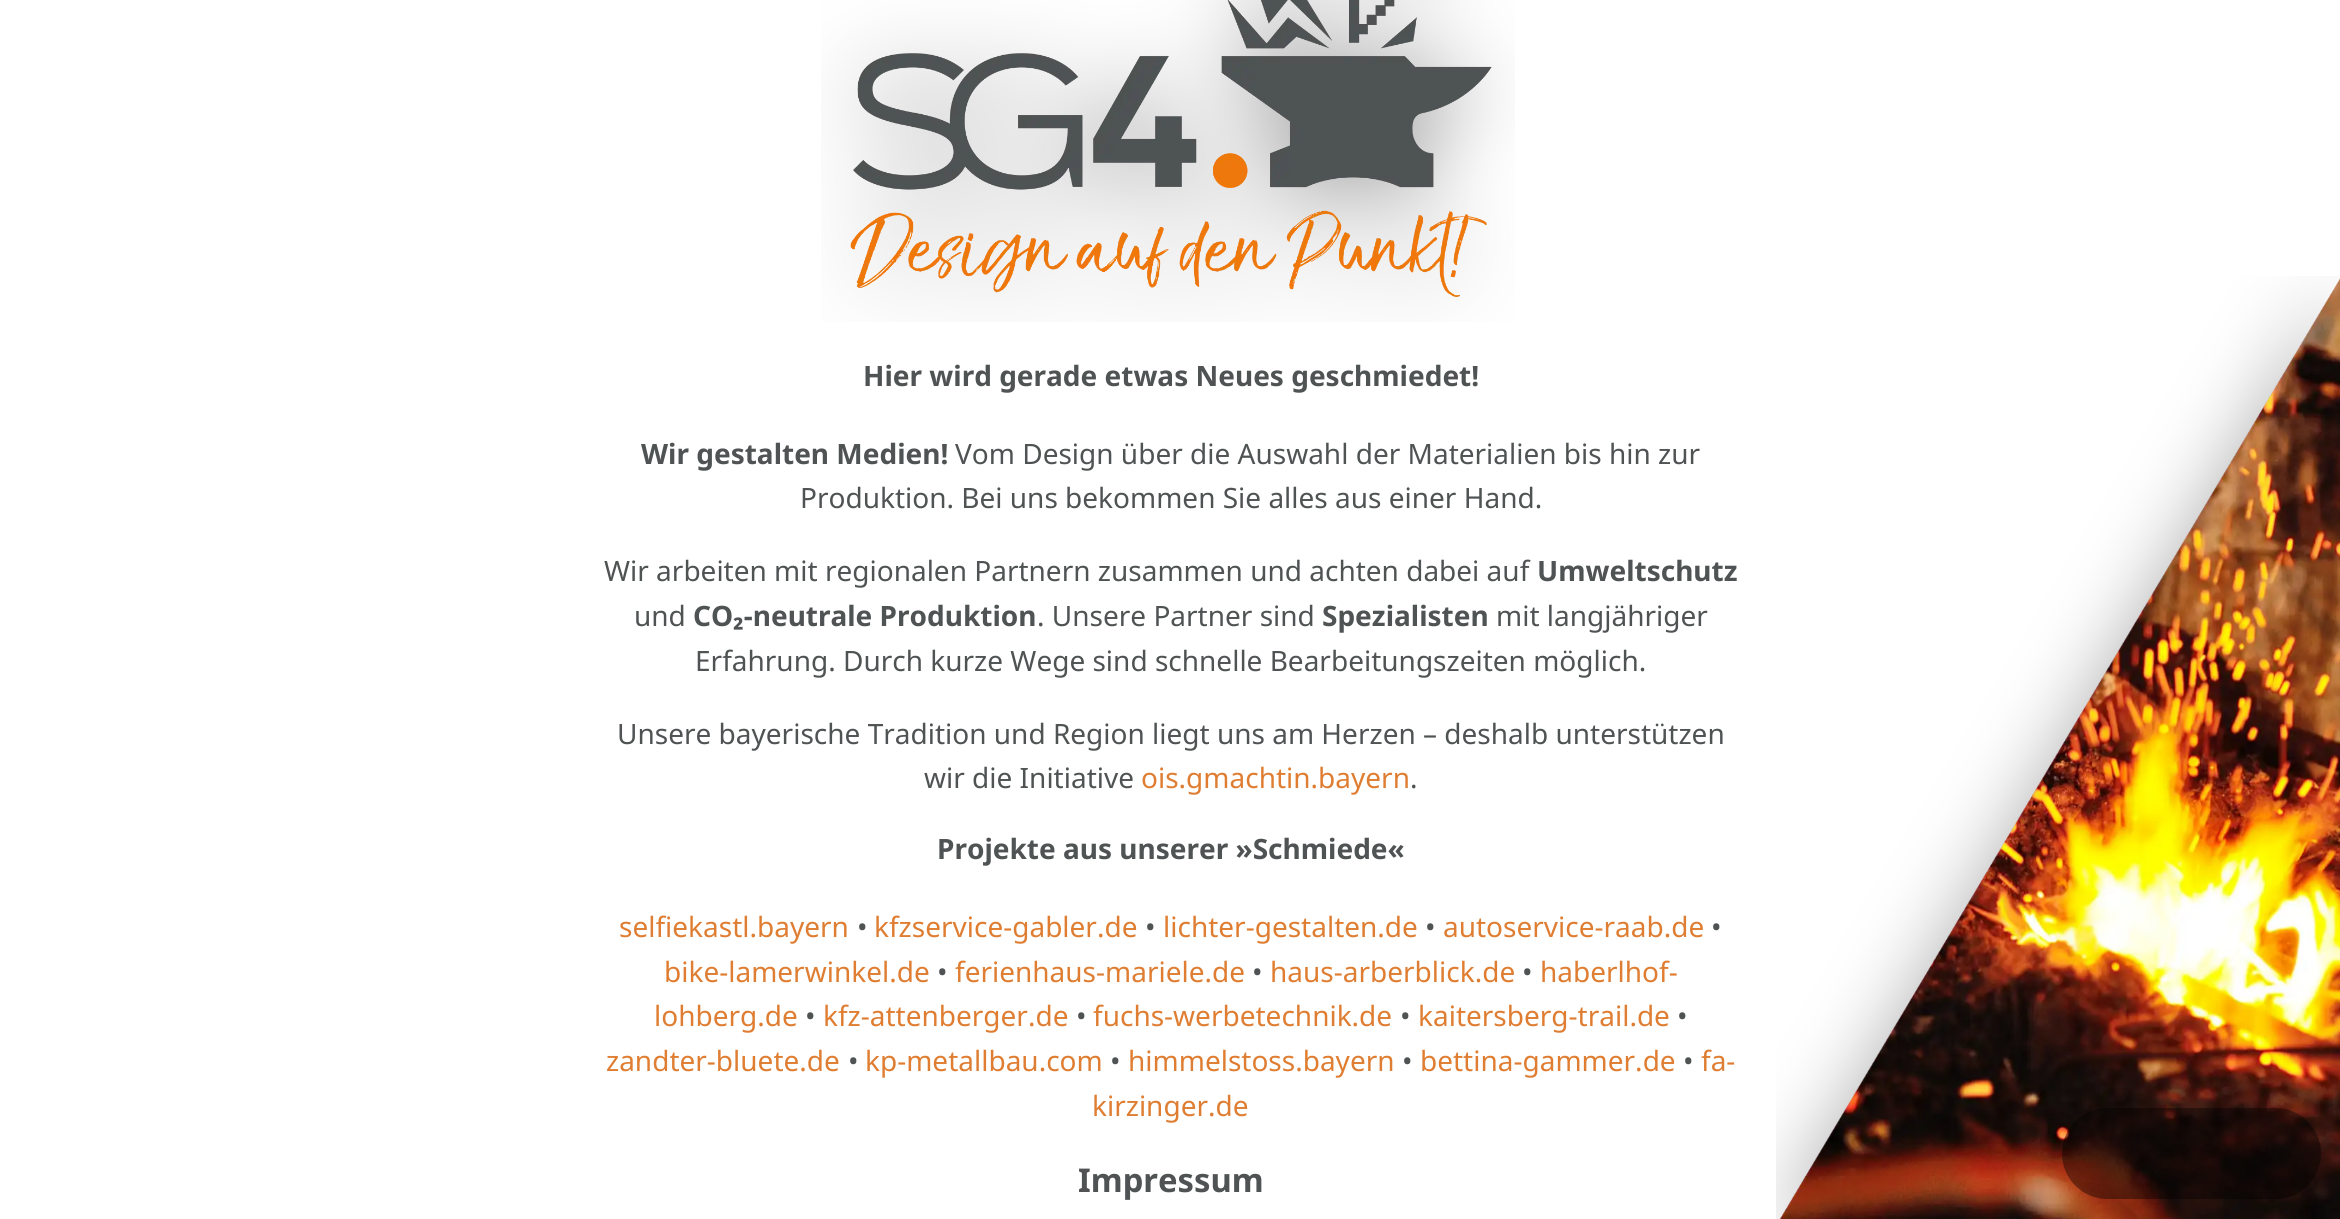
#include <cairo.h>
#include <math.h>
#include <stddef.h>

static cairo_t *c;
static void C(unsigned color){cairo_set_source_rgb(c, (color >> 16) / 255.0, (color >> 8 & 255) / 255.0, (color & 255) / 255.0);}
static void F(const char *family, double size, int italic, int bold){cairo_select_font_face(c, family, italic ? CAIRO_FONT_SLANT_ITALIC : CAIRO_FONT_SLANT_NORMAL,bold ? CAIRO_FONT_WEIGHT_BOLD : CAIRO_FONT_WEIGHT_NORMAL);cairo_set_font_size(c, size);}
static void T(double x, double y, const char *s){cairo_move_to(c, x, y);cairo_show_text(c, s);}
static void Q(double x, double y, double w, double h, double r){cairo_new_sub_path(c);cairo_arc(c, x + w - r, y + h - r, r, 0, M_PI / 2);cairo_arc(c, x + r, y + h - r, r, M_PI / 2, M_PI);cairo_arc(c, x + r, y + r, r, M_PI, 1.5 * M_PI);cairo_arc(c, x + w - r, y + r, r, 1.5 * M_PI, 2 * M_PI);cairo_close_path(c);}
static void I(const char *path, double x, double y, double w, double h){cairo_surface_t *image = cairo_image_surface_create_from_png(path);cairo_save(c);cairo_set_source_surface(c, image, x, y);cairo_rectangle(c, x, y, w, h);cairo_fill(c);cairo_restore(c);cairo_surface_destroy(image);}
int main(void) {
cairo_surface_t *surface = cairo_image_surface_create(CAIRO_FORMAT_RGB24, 2340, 1219);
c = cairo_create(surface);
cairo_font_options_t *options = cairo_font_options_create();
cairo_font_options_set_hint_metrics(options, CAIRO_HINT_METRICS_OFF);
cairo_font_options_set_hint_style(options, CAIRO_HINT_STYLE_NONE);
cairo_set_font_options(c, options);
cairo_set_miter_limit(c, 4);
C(0xffffff);
cairo_paint(c);
I("1.png",821,0,694,322);
F("Noto Sans",28,0,1);
C(0x4f5354);
T(863,386,"Hier wird gerade etwas Neues geschmiedet!");
T(641,464,"Wir gestalten Medien!");
F("Noto Sans",28,0,0);
T(955,464,"Vom Design über die Auswahl der Materialien bis hin zur");
T(800,508,"Produktion. Bei uns bekommen Sie alles aus einer Hand.");
T(604,581,"Wir arbeiten mit regionalen Partnern zusammen und achten dabei auf");
F("Noto Sans",28,0,1);
T(1537,581,"Umweltschutz");
F("Noto Sans",28,0,0);
T(634,626,"und");
F("Noto Sans",28,0,1);
T(693,626,"CO₂-neutrale Produktion");
F("Noto Sans",28,0,0);
T(1037,626,". Unsere Partner sind");
F("Noto Sans",28,0,1);
T(1322,626,"Spezialisten");
F("Noto Sans",28,0,0);
T(1496,626,"mit langjähriger");
T(695,671,"Erfahrung. Durch kurze Wege sind schnelle Bearbeitungszeiten möglich.");
T(617,744,"Unsere bayerische Tradition und Region liegt uns am Herzen – deshalb unterstützen");
T(924,788,"wir die Initiative");
C(0xdf7e32);
T(1141,788,"ois.gmachtin.bayern");
C(0x4f5354);
T(1410,788,".");
F("Noto Sans",28,0,1);
T(937,859,"Projekte aus unserer »Schmiede«");
F("Noto Sans",28,0,0);
C(0xdf7e32);
T(619,937,"selfiekastl.bayern");
C(0x4f5354);
T(857,937,"•");
C(0xdf7e32);
T(874,937,"kfzservice-gabler.de");
C(0x4f5354);
T(1145,937,"•");
C(0xdf7e32);
T(1163,937,"lichter-gestalten.de");
C(0x4f5354);
T(1425,937,"•");
C(0xdf7e32);
T(1443,937,"autoservice-raab.de");
C(0x4f5354);
T(1711,937,"•");
C(0xdf7e32);
T(664,982,"bike-lamerwinkel.de");
C(0x4f5354);
T(937,982,"•");
C(0xdf7e32);
T(955,982,"ferienhaus-mariele.de");
C(0x4f5354);
T(1252,982,"•");
C(0xdf7e32);
T(1270,982,"haus-arberblick.de");
C(0x4f5354);
T(1522,982,"•");
C(0xdf7e32);
T(1540,982,"haberlhof-");
T(654,1026,"lohberg.de");
C(0x4f5354);
T(805,1026,"•");
C(0xdf7e32);
T(823,1026,"kfz-attenberger.de");
C(0x4f5354);
T(1076,1026,"•");
C(0xdf7e32);
T(1093,1026,"fuchs-werbetechnik.de");
C(0x4f5354);
T(1400,1026,"•");
C(0xdf7e32);
T(1418,1026,"kaitersberg-trail.de");
C(0x4f5354);
T(1677,1026,"•");
C(0xdf7e32);
T(606,1071,"zandter-bluete.de");
C(0x4f5354);
T(848,1071,"•");
C(0xdf7e32);
T(865,1071,"kp-metallbau.com");
C(0x4f5354);
T(1110,1071,"•");
C(0xdf7e32);
T(1128,1071,"himmelstoss.bayern");
C(0x4f5354);
T(1402,1071,"•");
C(0xdf7e32);
T(1420,1071,"bettina-gammer.de");
C(0x4f5354);
T(1683,1071,"•");
C(0xdf7e32);
T(1701,1071,"fa-");
T(1092,1116,"kirzinger.de");
F("Noto Sans",32.75,0,1);
C(0x4f5354);
T(1078,1192,"Impressum");
I("2.png",1776,276,564,943);
cairo_set_source_rgba(c,0,0,0,0.4);
Q(2062,1108,259,91,45.5);
cairo_fill(c);
cairo_surface_write_to_png(surface, "o.png");
cairo_font_options_destroy(options);
cairo_destroy(c);
cairo_surface_destroy(surface);
return 0;
}
